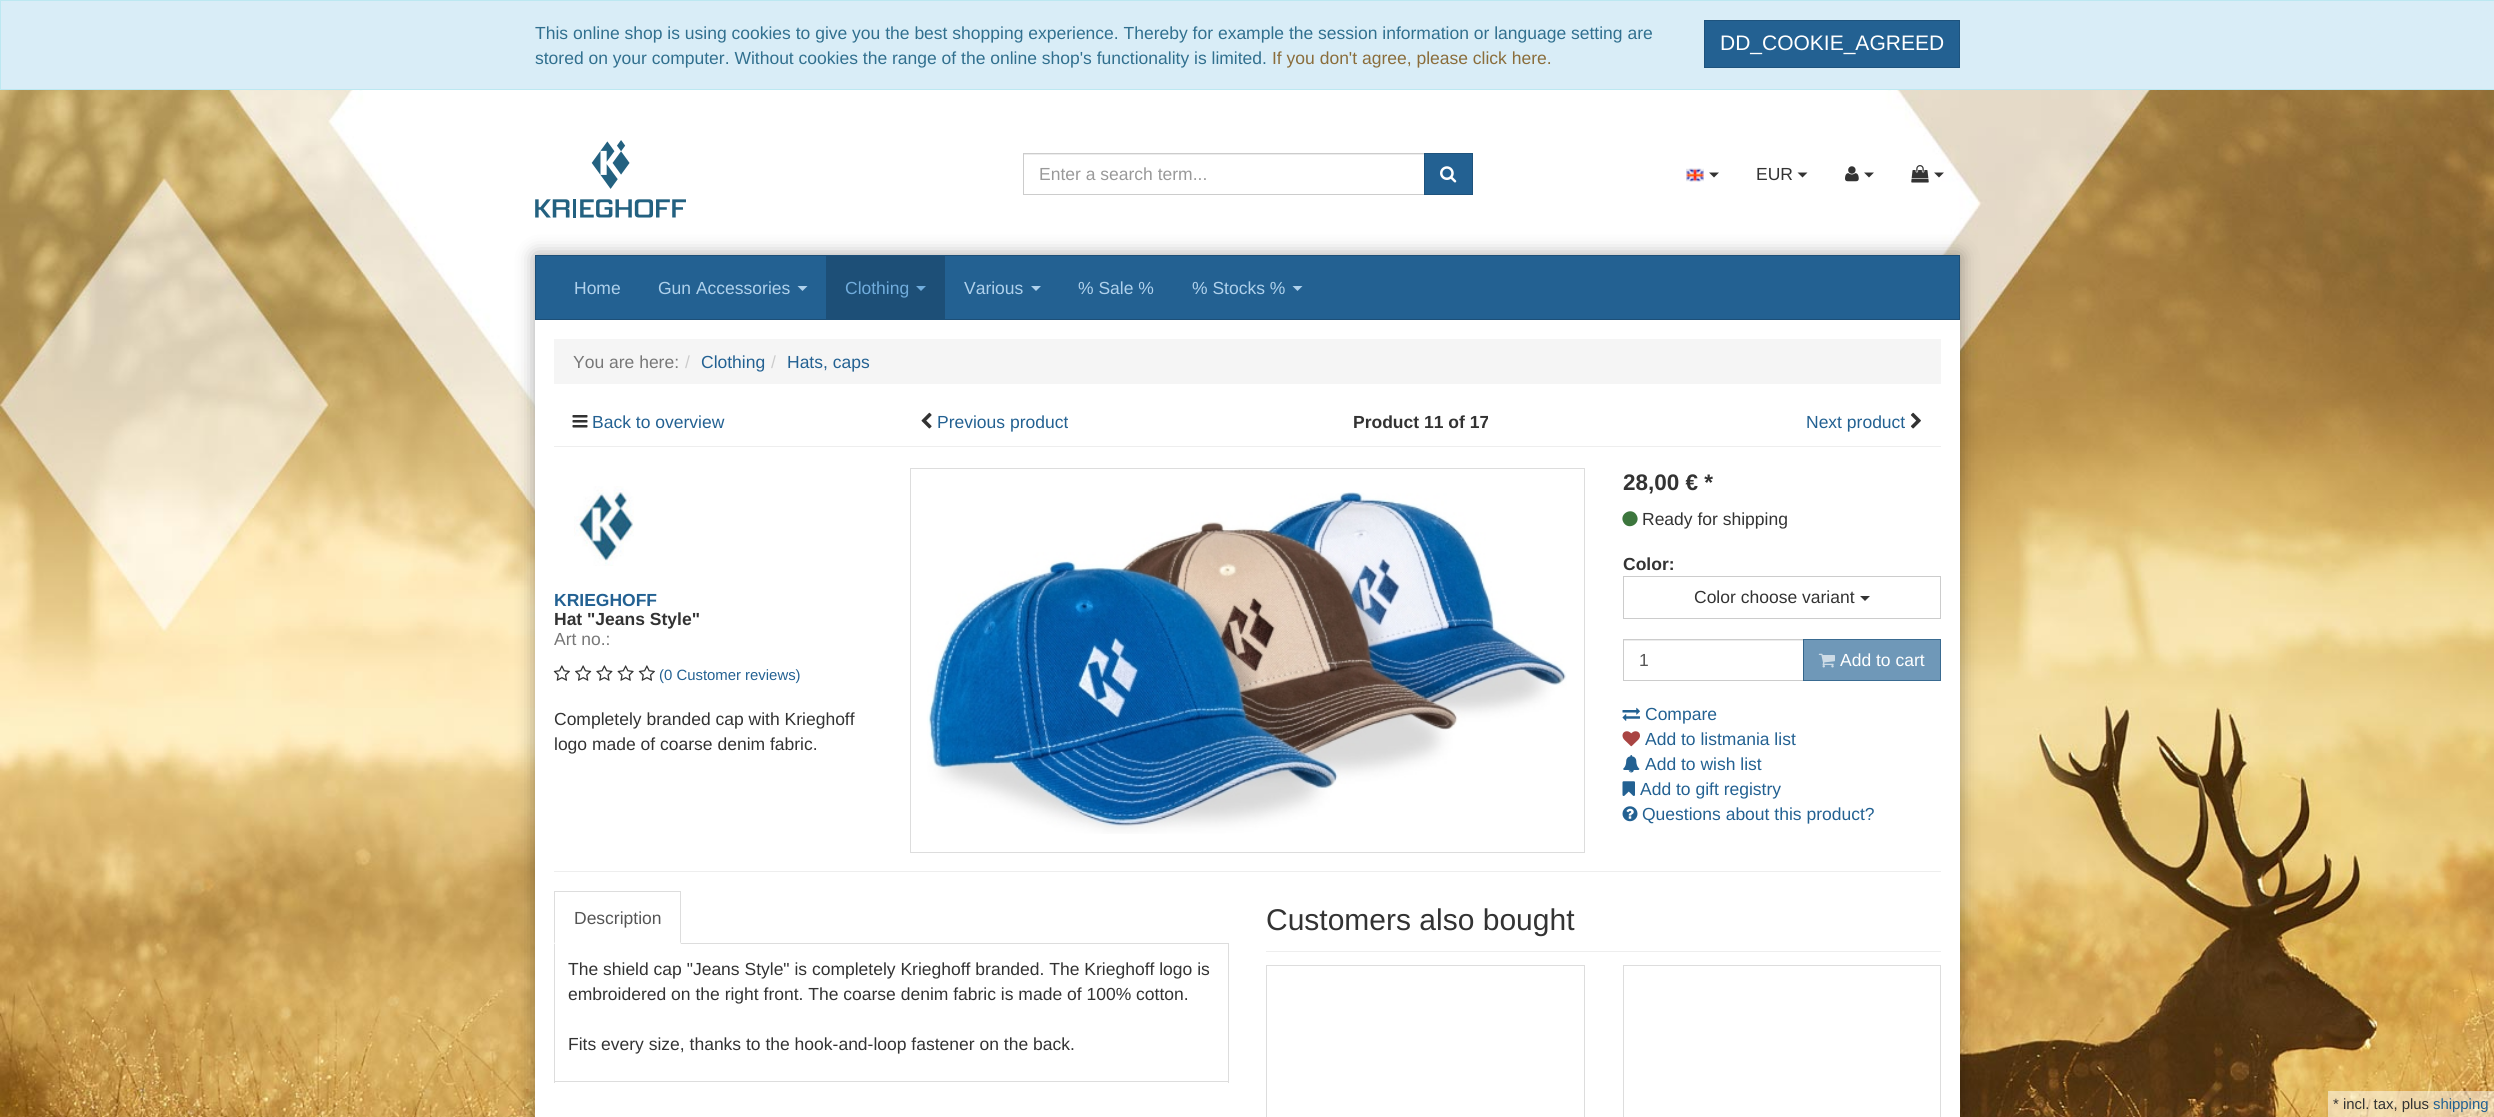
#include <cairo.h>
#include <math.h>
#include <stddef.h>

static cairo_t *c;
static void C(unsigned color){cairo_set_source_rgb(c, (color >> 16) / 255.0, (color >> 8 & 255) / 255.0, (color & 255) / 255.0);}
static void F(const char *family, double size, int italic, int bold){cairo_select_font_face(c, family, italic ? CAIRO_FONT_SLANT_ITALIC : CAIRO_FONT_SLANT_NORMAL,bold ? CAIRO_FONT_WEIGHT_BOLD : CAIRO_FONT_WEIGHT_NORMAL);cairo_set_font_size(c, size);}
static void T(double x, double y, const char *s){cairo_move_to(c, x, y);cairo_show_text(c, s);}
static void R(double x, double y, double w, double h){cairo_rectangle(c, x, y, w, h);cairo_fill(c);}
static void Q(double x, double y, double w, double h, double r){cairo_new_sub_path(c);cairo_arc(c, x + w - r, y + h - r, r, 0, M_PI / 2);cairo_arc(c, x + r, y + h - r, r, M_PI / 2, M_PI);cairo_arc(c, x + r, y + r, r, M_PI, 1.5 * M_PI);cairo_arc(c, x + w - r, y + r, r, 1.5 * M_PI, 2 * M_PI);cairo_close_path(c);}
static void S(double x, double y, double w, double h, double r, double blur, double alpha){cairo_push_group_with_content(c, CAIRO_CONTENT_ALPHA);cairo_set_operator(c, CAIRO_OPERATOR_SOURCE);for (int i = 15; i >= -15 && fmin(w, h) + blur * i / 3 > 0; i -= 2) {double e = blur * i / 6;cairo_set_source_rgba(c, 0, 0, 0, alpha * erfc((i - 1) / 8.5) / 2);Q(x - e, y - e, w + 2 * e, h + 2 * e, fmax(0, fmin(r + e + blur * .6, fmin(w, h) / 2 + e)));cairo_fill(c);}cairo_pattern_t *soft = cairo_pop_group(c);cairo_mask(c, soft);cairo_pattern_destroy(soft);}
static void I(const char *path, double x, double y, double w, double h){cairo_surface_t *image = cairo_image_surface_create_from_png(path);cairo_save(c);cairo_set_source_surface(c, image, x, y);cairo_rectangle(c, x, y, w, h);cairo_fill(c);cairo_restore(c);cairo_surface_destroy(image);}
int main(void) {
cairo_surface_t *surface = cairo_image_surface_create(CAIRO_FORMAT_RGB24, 2494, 1117);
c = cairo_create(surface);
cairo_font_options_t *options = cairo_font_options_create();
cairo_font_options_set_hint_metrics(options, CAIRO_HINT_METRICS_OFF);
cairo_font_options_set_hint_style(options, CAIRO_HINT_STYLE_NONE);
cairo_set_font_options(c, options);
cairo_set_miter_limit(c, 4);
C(0xffffff);
cairo_paint(c);
I("1.png",0,90,2494,1027);
C(0xd9edf7);
cairo_rectangle(c,.5,.5,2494,89);
cairo_fill_preserve(c);
C(0xbce8f1);
cairo_set_line_width(c,1);
cairo_stroke(c);
F("Liberation Sans",17.5,0,0);
C(0x31708f);
T(535,39,"This online shop is using cookies to give you the best shopping experience. Thereby for example the session information or language setting are");
T(535,64,"stored on your computer. Without cookies the range of the online shop's functionality is limited.");
C(0x8a6d3b);
T(1272,64,"If you don't agree, please click here.");
C(0x236192);
cairo_rectangle(c,1704.5,20.5,255,47);
cairo_fill_preserve(c);
C(0x1e537d);
cairo_stroke(c);
F("Liberation Sans",21,0,0);
C(0xffffff);
T(1720,50,"DD_COOKIE_AGREED");
I("2.png",535,140,151,78);
C(0xececec);
R(1024,154,400,1);
cairo_rectangle(c,1023.5,153.5,401,41);
C(0xcccccc);
cairo_stroke(c);
F("Liberation Sans",17.5,0,0);
C(0x999999);
T(1039,180,"Enter a search term...");
C(0x236192);
cairo_rectangle(c,1424.5,153.5,48,41);
cairo_fill_preserve(c);
C(0x1e537d);
cairo_stroke(c);
I("3.png",1440,166,17,17);
I("4.png",1686,168,18,14);
C(0x333333);
cairo_new_path(c);
cairo_move_to(c,1709,172.5);
cairo_line_to(c,1719,172.5);
cairo_line_to(c,1714,177.5);
cairo_close_path(c);
cairo_fill(c);
T(1756,180,"EUR");
cairo_new_path(c);
cairo_move_to(c,1797.5,172.5);
cairo_line_to(c,1807.5,172.5);
cairo_line_to(c,1802.5,177.5);
cairo_close_path(c);
cairo_fill(c);
I("5.png",1845,166,14,16);
cairo_new_path(c);
cairo_move_to(c,1864,172.5);
cairo_line_to(c,1874,172.5);
cairo_line_to(c,1869,177.5);
cairo_close_path(c);
cairo_fill(c);
I("6.png",1911,165,18,18);
cairo_new_path(c);
cairo_move_to(c,1934,172.5);
cairo_line_to(c,1944,172.5);
cairo_line_to(c,1939,177.5);
cairo_close_path(c);
cairo_fill(c);
C(0x000000);
S(535,255,1425,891,0,9.5,.35);
C(0x236192);
cairo_rectangle(c,535.5,255.5,1424,64);
cairo_fill_preserve(c);
C(0x1d4f77);
cairo_stroke(c);
C(0xafd1ec);
T(574,294,"Home");
T(658,294,"Gun Accessories");
cairo_new_path(c);
cairo_move_to(c,797.5,286);
cairo_line_to(c,807.5,286);
cairo_line_to(c,802.5,291);
cairo_close_path(c);
cairo_fill(c);
C(0x1d4f77);
R(826,256,119,63);
C(0x71addd);
T(845,294,"Clothing");
cairo_new_path(c);
cairo_move_to(c,916,286);
cairo_line_to(c,926,286);
cairo_line_to(c,921,291);
cairo_close_path(c);
cairo_fill(c);
C(0xafd1ec);
T(964,294,"Various");
cairo_new_path(c);
cairo_move_to(c,1031,286);
cairo_line_to(c,1041,286);
cairo_line_to(c,1036,291);
cairo_close_path(c);
cairo_fill(c);
T(1078,294,"% Sale %");
T(1192,294,"% Stocks %");
cairo_new_path(c);
cairo_move_to(c,1292.5,286);
cairo_line_to(c,1302.5,286);
cairo_line_to(c,1297.5,291);
cairo_close_path(c);
cairo_fill(c);
C(0xffffff);
R(535,320,1425,797);
C(0xf5f5f5);
R(554,339,1387,45);
C(0x777777);
T(573,368,"You are here:");
C(0xcccccc);
T(685,368,"/");
C(0x236192);
T(701,368,"Clothing");
C(0xcccccc);
T(771,368,"/");
C(0x236192);
T(787,368,"Hats, caps");
C(0xeeeeee);
R(554,446,1387,1);
I("7.png",572,415,16,13);
C(0x236192);
T(592,428,"Back to overview");
I("8.png",921,412,11,17);
T(937,428,"Previous product");
F("Liberation Sans",17.5,0,1);
C(0x333333);
T(1353,428,"Product 11 of 17");
F("Liberation Sans",17.5,0,0);
C(0x236192);
T(1806,428,"Next product");
I("9.png",1910,412,11,17);
C(0xeeeeee);
R(554,871,1387,1);
I("10.png",574,486,60,80);
F("Liberation Sans",17.5,0,1);
C(0x236192);
T(554,606,"KRIEGHOFF");
C(0x333333);
T(554,625,"Hat \"Jeans Style\"");
F("Liberation Sans",17.5,0,0);
C(0x777777);
T(554,645,"Art no.:");
I("11.png",553,665,17,16);
I("12.png",575,665,17,16);
I("13.png",596,665,17,16);
I("14.png",617,665,17,16);
I("11.png",638,665,17,16);
F("Liberation Sans",14.9,0,0);
C(0x236192);
T(659,680,"(0 Customer reviews)");
F("Liberation Sans",17.5,0,0);
C(0x333333);
T(554,725,"Completely branded cap with Krieghoff");
T(554,750,"logo made of coarse denim fabric.");
cairo_rectangle(c,910.5,468.5,674,384);
C(0xdddddd);
cairo_stroke(c);
I("15.png",927,492,640,342);
F("Liberation Sans",22.5,0,1);
C(0x333333);
T(1623,490,"28,00 € *");
C(0x3c763d);
cairo_new_path(c);
cairo_move_to(c,1636.5,515);
cairo_curve_to(c,1641.5,523.5,1628.5,531,1623.5,522.5);
cairo_curve_to(c,1618.5,514,1631.5,506.5,1636.5,515);
cairo_close_path(c);
cairo_fill(c);
F("Liberation Sans",17.5,0,0);
C(0x333333);
T(1642,525,"Ready for shipping");
F("Liberation Sans",17.5,0,1);
T(1623,570,"Color:");
cairo_rectangle(c,1623.5,576.5,317,42);
C(0xcccccc);
cairo_stroke(c);
F("Liberation Sans",17.5,0,0);
C(0x333333);
T(1694,603,"Color choose variant");
cairo_new_path(c);
cairo_move_to(c,1860,596);
cairo_line_to(c,1870,596);
cairo_line_to(c,1865,601);
cairo_close_path(c);
cairo_fill(c);
C(0xececec);
R(1624,640,179,1);
cairo_rectangle(c,1623.5,639.5,180,41);
C(0xcccccc);
cairo_stroke(c);
C(0x555555);
T(1639,666,"1");
cairo_set_source_rgba(c,0.137,0.38,0.573,0.65);
R(1803,639,138,42);
cairo_rectangle(c,1803.5,639.5,137,41);
cairo_set_source_rgba(c,0.118,0.325,0.49,0.65);
cairo_stroke(c);
I("16.png",1818,653,17,15);
C(0xffffff);
T(1840,666,"Add to cart");
I("17.png",1622,707,18,14);
C(0x236192);
T(1645,720,"Compare");
I("18.png",1622,731,18,16);
T(1645,745,"Add to listmania list");
I("19.png",1623,755,17,18);
T(1645,770,"Add to wish list");
I("20.png",1622,781,13,15);
T(1640,795,"Add to gift registry");
I("21.png",1622,806,16,16);
T(1642,820,"Questions about this product?");
C(0xdddddd);
R(681,943,548,1);
R(554,891,127,1);
cairo_new_path(c);
cairo_move_to(c,681,891);
cairo_line_to(c,681,944);
cairo_line_to(c,680,942);
cairo_line_to(c,680,892);
cairo_close_path(c);
cairo_fill(c);
cairo_new_path(c);
cairo_move_to(c,554,944);
cairo_line_to(c,554,891);
cairo_line_to(c,555,892);
cairo_line_to(c,555,942);
cairo_close_path(c);
cairo_fill(c);
C(0x555555);
T(574,924,"Description");
C(0xdddddd);
R(1228,944,1,139);
R(554,1081,675,1);
R(554,944,1,139);
C(0x333333);
T(568,975,"The shield cap \"Jeans Style\" is completely Krieghoff branded. The Krieghoff logo is");
T(568,1000,"embroidered on the right front. The coarse denim fabric is made of 100% cotton.");
T(568,1050,"Fits every size, thanks to the hook-and-loop fastener on the back.");
C(0xeeeeee);
R(1266,951,675,1);
F("Liberation Sans",30,0,0);
C(0x333333);
T(1266,930,"Customers also bought");
cairo_rectangle(c,1266.5,965.5,318,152);
C(0xdddddd);
cairo_stroke(c);
cairo_rectangle(c,1623.5,965.5,317,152);
cairo_stroke(c);
cairo_set_source_rgba(c,1,1,1,0.5);
R(2328,1091,166,26);
F("Liberation Sans",14.9,0,0);
C(0x333333);
T(2333,1109,"* incl. tax, plus");
C(0x236192);
T(2433,1109,"shipping");
cairo_surface_write_to_png(surface, "o.png");
cairo_font_options_destroy(options);
cairo_destroy(c);
cairo_surface_destroy(surface);
return 0;
}
